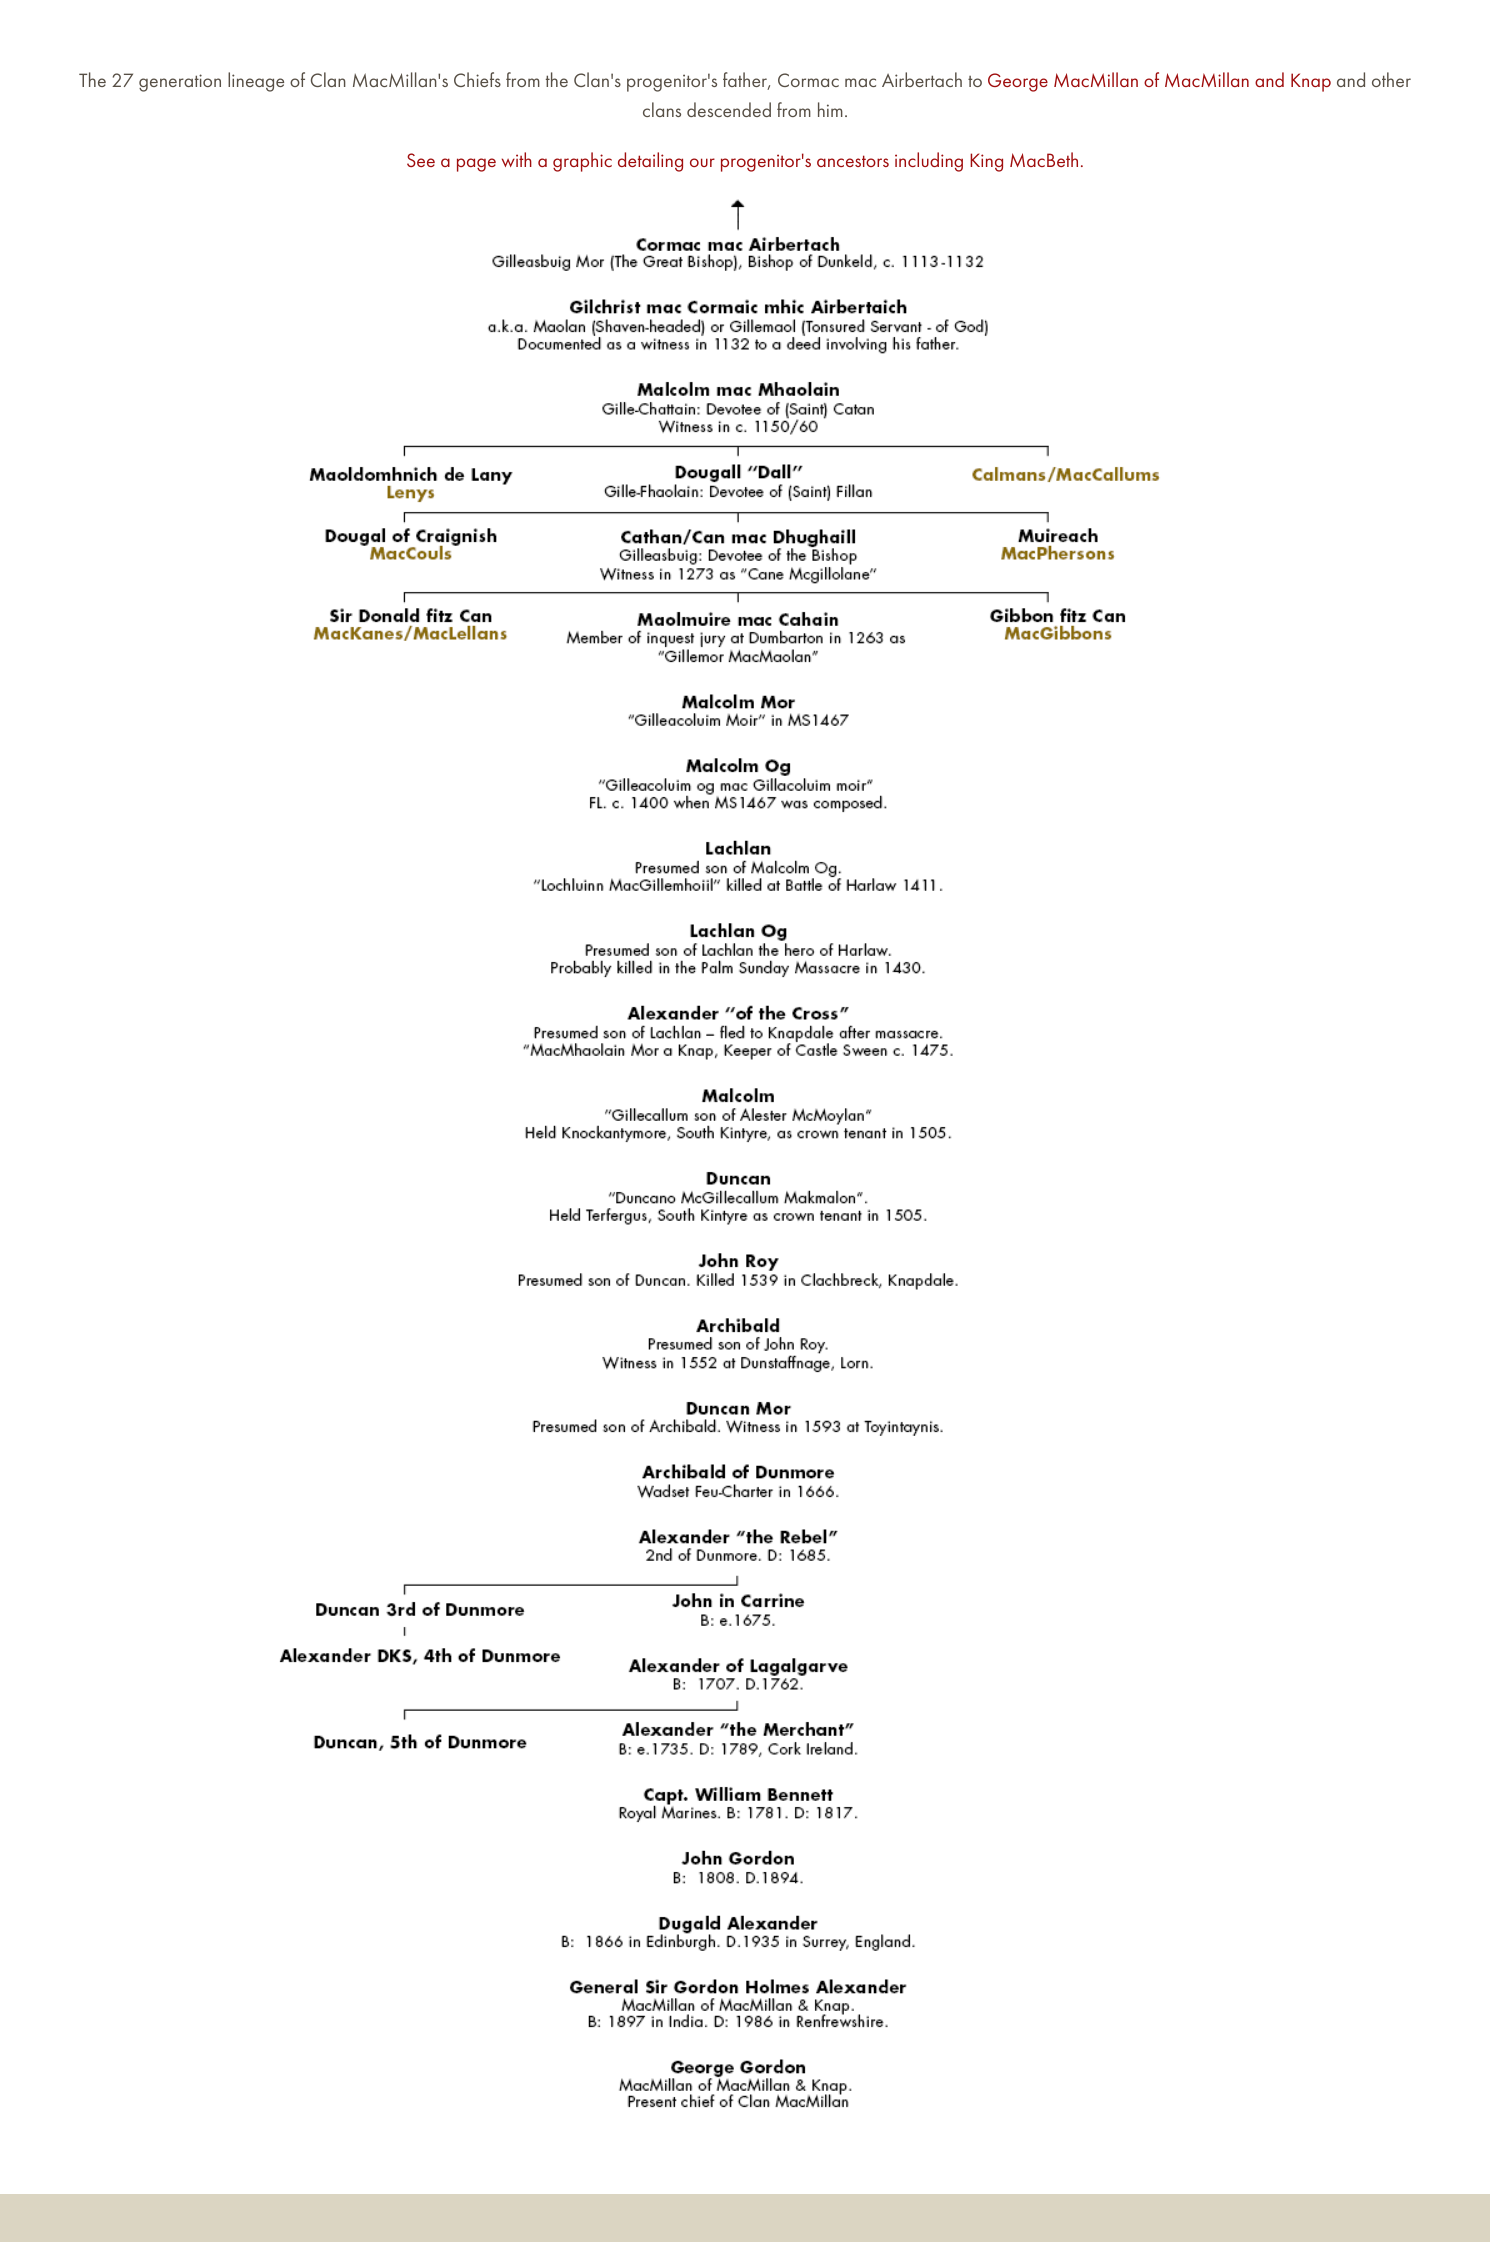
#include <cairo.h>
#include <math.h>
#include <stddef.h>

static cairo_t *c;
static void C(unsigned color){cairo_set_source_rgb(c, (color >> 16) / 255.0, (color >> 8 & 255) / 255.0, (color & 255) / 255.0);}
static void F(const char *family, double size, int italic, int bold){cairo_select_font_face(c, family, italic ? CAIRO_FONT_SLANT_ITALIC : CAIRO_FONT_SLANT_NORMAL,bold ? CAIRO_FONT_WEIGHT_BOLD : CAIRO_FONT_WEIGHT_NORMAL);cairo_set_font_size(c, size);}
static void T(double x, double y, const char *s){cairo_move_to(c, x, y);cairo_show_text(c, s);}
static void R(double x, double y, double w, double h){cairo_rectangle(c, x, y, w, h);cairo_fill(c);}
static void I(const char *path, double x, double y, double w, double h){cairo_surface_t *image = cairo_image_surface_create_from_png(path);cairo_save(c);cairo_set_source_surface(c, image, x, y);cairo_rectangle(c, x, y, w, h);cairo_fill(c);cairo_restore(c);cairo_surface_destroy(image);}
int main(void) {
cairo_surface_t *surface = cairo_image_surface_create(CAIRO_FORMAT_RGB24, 1490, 2242);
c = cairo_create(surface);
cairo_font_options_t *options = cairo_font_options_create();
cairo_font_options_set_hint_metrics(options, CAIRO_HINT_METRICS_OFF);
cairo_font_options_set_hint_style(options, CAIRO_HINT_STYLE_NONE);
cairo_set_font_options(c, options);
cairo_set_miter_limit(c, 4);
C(0xffffff);
cairo_paint(c);
F("Futura PT",20,0,0);
C(0x585046);
T(79,87,"The 27 generation lineage of Clan MacMillan's Chiefs from the Clan's progenitor's father, Cormac mac Airbertach to");
C(0x9f0f0f);
T(987,87,"George MacMillan of MacMillan and Knap");
C(0x585046);
T(1336,87,"and other");
T(642,117,"clans descended from him.");
C(0x9f0f0f);
T(406,167,"See a page with a graphic detailing our progenitor's ancestors including King MacBeth.");
I("1.png",279,199,882,1910);
C(0xdbd5c2);
R(0,2194,1490,48);
cairo_surface_write_to_png(surface, "o.png");
cairo_font_options_destroy(options);
cairo_destroy(c);
cairo_surface_destroy(surface);
return 0;
}
